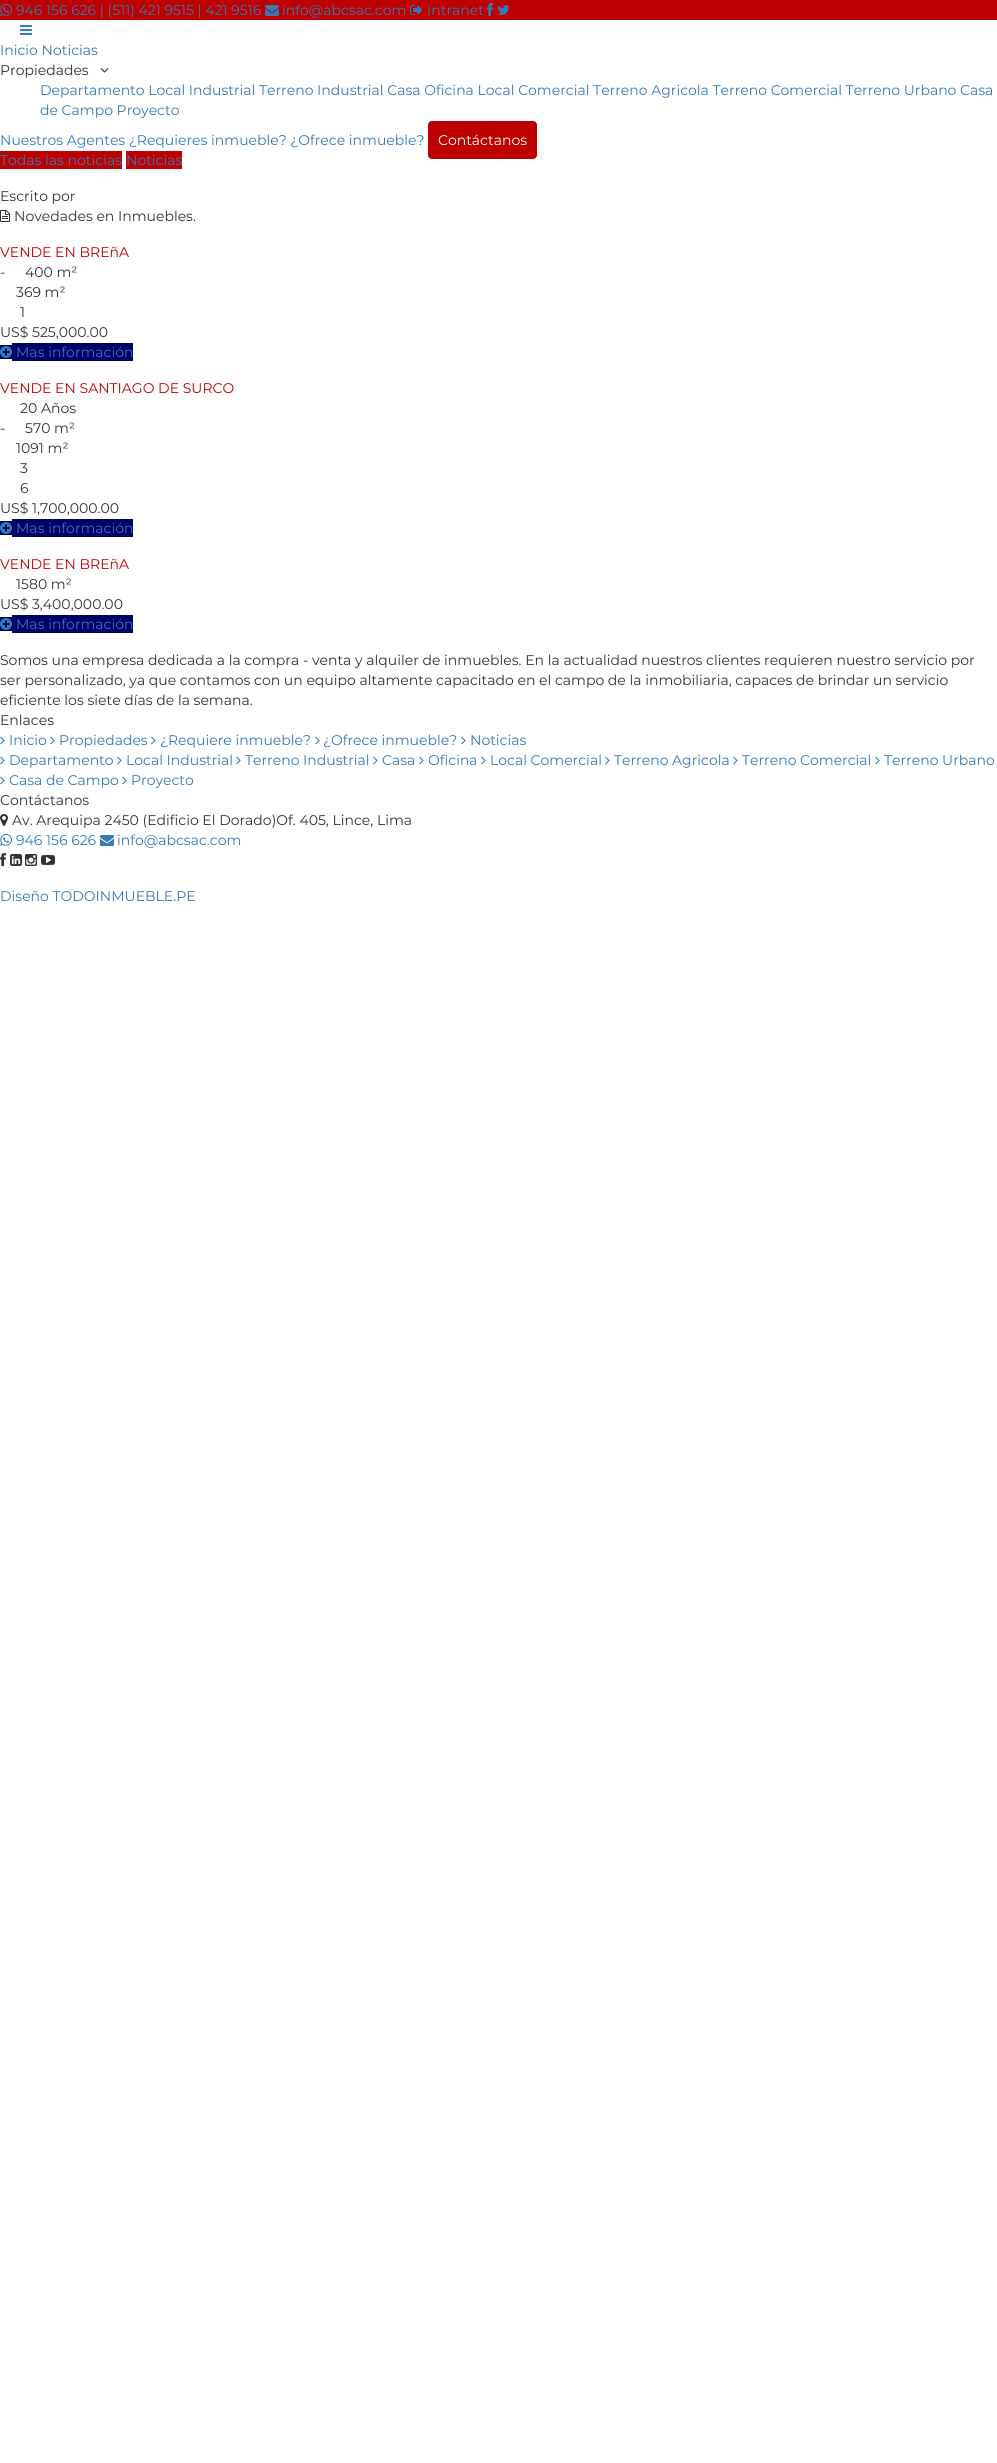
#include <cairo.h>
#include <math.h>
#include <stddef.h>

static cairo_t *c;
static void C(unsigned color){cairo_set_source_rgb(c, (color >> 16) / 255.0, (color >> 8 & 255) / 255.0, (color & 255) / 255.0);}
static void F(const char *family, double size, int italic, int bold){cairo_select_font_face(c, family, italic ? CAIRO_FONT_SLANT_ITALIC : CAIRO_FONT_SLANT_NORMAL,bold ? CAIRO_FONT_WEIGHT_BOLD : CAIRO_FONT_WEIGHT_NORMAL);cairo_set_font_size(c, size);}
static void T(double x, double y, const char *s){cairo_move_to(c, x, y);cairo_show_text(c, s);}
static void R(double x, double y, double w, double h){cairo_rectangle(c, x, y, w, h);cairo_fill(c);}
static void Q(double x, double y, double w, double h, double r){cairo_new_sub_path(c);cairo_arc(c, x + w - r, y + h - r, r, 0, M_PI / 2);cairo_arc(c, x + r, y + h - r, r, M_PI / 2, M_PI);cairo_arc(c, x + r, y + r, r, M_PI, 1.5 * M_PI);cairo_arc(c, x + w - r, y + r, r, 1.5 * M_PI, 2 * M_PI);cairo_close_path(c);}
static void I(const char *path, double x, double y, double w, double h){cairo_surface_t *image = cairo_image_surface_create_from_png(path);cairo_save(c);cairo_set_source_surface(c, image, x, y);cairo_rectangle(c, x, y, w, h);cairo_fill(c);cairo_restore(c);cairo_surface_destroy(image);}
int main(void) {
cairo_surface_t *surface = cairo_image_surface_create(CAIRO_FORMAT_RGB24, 997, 2463);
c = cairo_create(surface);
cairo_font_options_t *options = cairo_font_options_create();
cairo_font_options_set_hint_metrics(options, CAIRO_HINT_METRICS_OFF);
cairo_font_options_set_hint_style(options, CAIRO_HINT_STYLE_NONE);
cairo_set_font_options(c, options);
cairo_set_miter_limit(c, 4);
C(0xffffff);
cairo_paint(c);
C(0xbf0000);
R(0,0,997,20);
I("1.png",0,4,12,12);
F("Montserrat",14,0,0);
C(0x337ab7);
T(16,15,"946 156 626 | (511) 421 9515 | 421 9516");
I("2.png",265,5,14,11);
T(282,15,"info@abcsac.com");
I("3.png",410,5,13,10);
T(427,15,"Intranet");
I("4.png",487,3,6,13);
I("5.png",497,5,13,10);
I("6.png",20,25,12,10);
T(0,55,"Inicio Noticias");
C(0x333333);
T(0,75,"Propiedades");
I("7.png",100,68,9,5);
C(0x337ab7);
T(40,95,"Departamento Local Industrial Terreno Industrial Casa Oficina Local Comercial Terreno Agricola Terreno Comercial Terreno Urbano Casa");
T(40,115,"de Campo Proyecto");
T(0,145,"Nuestros Agentes ¿Requieres inmueble? ¿Ofrece inmueble?");
C(0xbf0000);
Q(428,121,109,38,4);
cairo_fill(c);
C(0xffffff);
T(438,145,"Contáctanos");
C(0xbf0000);
R(0,151,122,18);
C(0x337ab7);
T(0,165,"Todas las noticias");
C(0xbf0000);
R(126,151,56,18);
C(0x337ab7);
T(126,165,"Noticias");
C(0x333333);
T(0,201,"Escrito por");
I("8.png",0,210,10,12);
T(14,221,"Novedades en Inmuebles.");
C(0xbf0000);
T(0,257,"VENDE EN BREñA");
C(0x333333);
T(0,277,"-");
T(25,277,"400 m²");
T(16,297,"369 m²");
T(20,317,"1");
T(0,337,"US$ 525,000.00");
C(0x000066);
R(0,345,12,14);
R(12,343,121,18);
I("9.png",0,346,12,12);
C(0x337ab7);
T(16,357,"Mas información");
C(0xbf0000);
T(0,393,"VENDE EN SANTIAGO DE SURCO");
C(0x333333);
T(20,413,"20 Años");
T(0,433,"-");
T(25,433,"570 m²");
T(16,453,"1091 m²");
T(20,473,"3");
T(20,493,"6");
T(0,513,"US$ 1,700,000.00");
C(0x000066);
R(0,521,12,14);
R(12,519,121,18);
I("9.png",0,522,12,12);
C(0x337ab7);
T(16,533,"Mas información");
C(0xbf0000);
T(0,569,"VENDE EN BREñA");
C(0x333333);
T(16,589,"1580 m²");
T(0,609,"US$ 3,400,000.00");
C(0x000066);
R(0,617,12,14);
R(12,615,121,18);
I("9.png",0,618,12,12);
C(0x337ab7);
T(16,629,"Mas información");
C(0x333333);
T(0,665,"Somos una empresa dedicada a la compra - venta y alquiler de inmuebles. En la actualidad nuestros clientes requieren nuestro servicio por");
T(0,685,"ser personalizado, ya que contamos con un equipo altamente capacitado en el campo de la inmobiliaria, capaces de brindar un servicio");
T(0,705,"eficiente los siete días de la semana.");
T(0,725,"Enlaces");
I("10.png",0,736,5,9);
C(0x337ab7);
T(9,745,"Inicio");
I("10.png",50,736,5,9);
T(59,745,"Propiedades");
I("10.png",151,736,5,9);
T(160,745,"¿Requiere inmueble?");
I("10.png",315,736,5,9);
T(323,745,"¿Ofrece inmueble?");
I("10.png",461,736,5,9);
T(470,745,"Noticias");
I("10.png",0,756,5,9);
T(9,765,"Departamento");
I("10.png",117,756,5,9);
T(126,765,"Local Industrial");
I("10.png",236,756,5,9);
T(245,765,"Terreno Industrial");
I("10.png",373,756,5,9);
T(382,765,"Casa");
I("10.png",419,756,5,9);
T(428,765,"Oficina");
I("10.png",481,756,5,9);
T(490,765,"Local Comercial");
I("10.png",605,756,5,9);
T(614,765,"Terreno Agricola");
I("10.png",733,756,5,9);
T(742,765,"Terreno Comercial");
I("10.png",875,756,5,9);
T(884,765,"Terreno Urbano");
I("10.png",0,776,5,9);
T(9,785,"Casa de Campo");
I("10.png",122,776,5,9);
T(131,785,"Proyecto");
C(0x333333);
T(0,805,"Contáctanos");
I("11.png",0,814,8,12);
T(12,825,"Av. Arequipa 2450 (Edificio El Dorado)Of. 405, Lince, Lima");
I("12.png",0,834,12,12);
C(0x337ab7);
T(16,845,"946 156 626");
I("13.png",100,835,14,11);
T(117,845,"info@abcsac.com");
I("14.png",0,853,6,13);
I("15.png",10,854,12,12);
I("16.png",25,854,12,12);
I("17.png",41,855,14,10);
T(0,901,"Diseño TODOINMUEBLE.PE");
cairo_surface_write_to_png(surface, "o.png");
cairo_font_options_destroy(options);
cairo_destroy(c);
cairo_surface_destroy(surface);
return 0;
}
